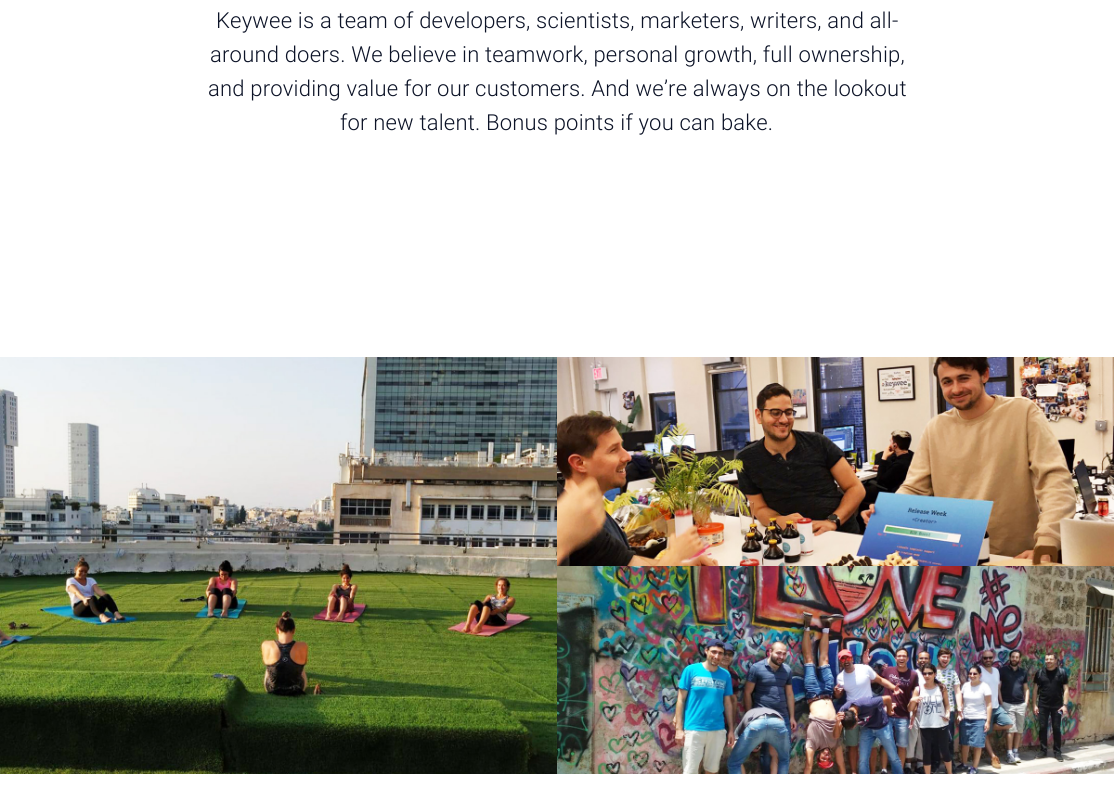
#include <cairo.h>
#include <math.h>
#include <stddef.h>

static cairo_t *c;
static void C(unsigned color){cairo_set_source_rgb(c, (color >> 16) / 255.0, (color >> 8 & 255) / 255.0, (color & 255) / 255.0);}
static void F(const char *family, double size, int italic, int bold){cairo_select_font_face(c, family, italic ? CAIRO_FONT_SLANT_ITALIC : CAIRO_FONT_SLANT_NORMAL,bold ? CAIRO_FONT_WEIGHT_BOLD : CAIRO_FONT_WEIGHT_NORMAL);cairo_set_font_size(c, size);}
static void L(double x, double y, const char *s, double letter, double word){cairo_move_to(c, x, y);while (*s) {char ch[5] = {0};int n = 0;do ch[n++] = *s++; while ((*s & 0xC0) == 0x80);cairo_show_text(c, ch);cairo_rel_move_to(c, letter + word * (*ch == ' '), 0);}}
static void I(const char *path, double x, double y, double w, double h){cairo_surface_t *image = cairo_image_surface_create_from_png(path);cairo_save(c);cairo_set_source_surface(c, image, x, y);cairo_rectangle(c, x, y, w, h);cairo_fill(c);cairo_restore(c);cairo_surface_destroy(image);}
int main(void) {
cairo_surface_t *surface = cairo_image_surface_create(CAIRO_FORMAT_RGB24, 1114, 802);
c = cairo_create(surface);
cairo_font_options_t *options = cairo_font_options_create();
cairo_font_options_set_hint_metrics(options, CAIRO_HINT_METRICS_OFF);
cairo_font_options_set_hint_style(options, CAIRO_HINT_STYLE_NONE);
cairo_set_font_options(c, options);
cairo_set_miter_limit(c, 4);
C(0xffffff);
cairo_paint(c);
F("Roboto Light",22,0,0);
C(0x0c1327);
L(216,28,"Keywee is a team of developers, scientists, marketers, writers, and all-",.2,0);
L(210,62,"around doers. We believe in teamwork, personal growth, full ownership,",.2,0);
L(208,96,"and providing value for our customers. And we’re always on the lookout",.2,0);
L(340,130,"for new talent. Bonus points if you can bake.",.2,0);
I("1.png",0,357,557,417);
I("2.png",557,357,557,209);
I("3.png",557,566,557,208);
cairo_surface_write_to_png(surface, "o.png");
cairo_font_options_destroy(options);
cairo_destroy(c);
cairo_surface_destroy(surface);
return 0;
}
